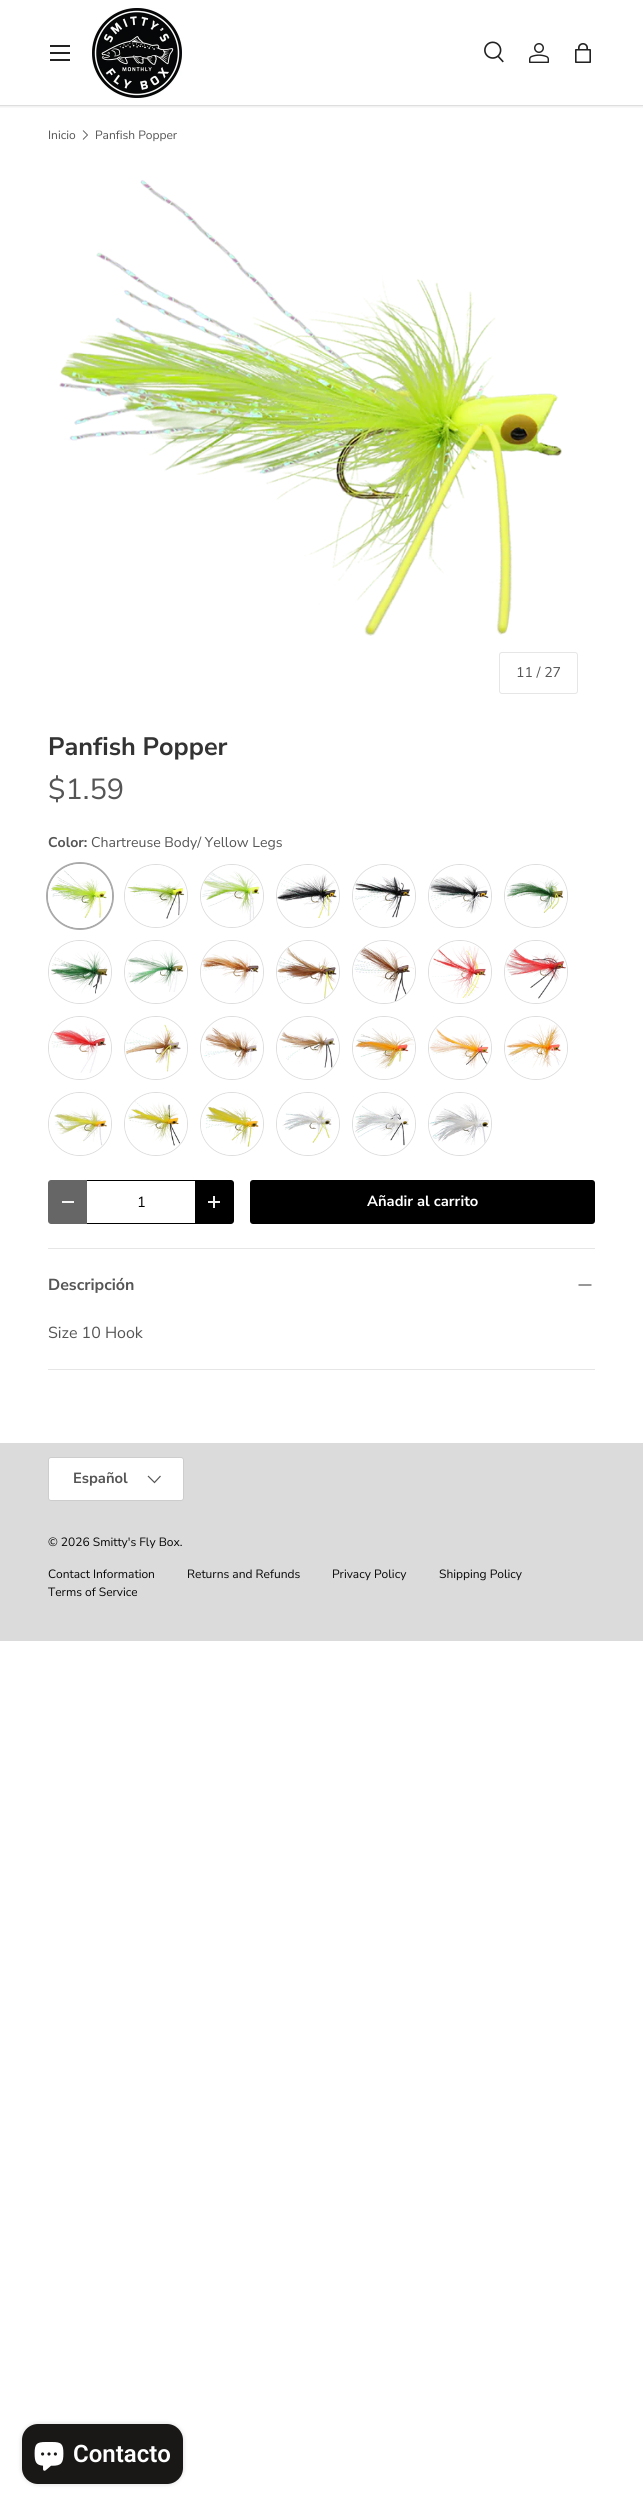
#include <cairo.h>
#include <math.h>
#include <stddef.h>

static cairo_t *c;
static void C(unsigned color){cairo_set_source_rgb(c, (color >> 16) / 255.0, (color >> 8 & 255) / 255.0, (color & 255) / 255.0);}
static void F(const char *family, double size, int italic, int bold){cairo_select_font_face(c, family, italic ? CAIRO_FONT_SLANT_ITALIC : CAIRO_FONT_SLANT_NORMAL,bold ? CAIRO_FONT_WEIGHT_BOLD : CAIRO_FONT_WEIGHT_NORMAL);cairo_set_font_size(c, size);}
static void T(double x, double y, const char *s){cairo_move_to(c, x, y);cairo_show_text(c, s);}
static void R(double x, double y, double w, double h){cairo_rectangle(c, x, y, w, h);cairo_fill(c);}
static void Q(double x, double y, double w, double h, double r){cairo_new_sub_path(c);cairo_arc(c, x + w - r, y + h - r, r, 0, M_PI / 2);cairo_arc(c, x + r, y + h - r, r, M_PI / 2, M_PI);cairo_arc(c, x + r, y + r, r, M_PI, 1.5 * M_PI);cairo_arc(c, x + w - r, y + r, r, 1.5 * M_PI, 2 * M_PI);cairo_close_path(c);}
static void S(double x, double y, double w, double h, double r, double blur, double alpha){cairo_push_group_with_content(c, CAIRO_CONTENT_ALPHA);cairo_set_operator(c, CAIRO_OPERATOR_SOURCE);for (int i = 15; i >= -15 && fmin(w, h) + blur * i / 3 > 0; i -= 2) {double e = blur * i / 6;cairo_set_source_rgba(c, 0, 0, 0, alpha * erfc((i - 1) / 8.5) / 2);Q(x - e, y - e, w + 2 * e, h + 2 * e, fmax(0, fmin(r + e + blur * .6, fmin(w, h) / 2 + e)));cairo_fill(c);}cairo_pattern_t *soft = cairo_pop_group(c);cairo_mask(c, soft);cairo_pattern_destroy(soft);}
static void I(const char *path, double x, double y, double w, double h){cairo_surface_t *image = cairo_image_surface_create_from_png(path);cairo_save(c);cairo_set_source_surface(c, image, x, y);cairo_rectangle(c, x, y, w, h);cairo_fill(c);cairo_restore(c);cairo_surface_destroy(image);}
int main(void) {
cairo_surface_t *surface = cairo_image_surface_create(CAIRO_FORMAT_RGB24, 643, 2505);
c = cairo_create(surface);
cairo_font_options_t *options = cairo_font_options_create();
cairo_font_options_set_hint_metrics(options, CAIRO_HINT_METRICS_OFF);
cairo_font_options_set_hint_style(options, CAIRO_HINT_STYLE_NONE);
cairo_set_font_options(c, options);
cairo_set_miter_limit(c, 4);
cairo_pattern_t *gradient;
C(0xffffff);
cairo_paint(c);
cairo_save(c);
cairo_rectangle(c,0,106,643,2);
cairo_clip(c);
C(0x000000);
S(-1,-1,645,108,0,1.5,.08);
cairo_restore(c);
C(0x222222);
R(50,45,20,2);
R(50,59,20,2);
R(50,52,20,2);
I("1.png",92,8,90,90);
I("2.png",484,41,20,22);
I("3.png",529,43,20,20);
I("4.png",575,43,16,20);
C(0xdedede);
R(0,105,643,1);
F("Nunito Sans",12,0,0);
C(0x555555);
T(48,139,"Inicio");
cairo_new_path(c);
cairo_move_to(c,83,130.5);
cairo_line_to(c,87.5,135);
cairo_line_to(c,83,139.5);
cairo_set_line_width(c,.9);
cairo_stroke(c);
T(95,139,"Panfish Popper");
I("5.png",59,180,503,456);
Q(499.5,652.5,78,41,2.5);
C(0xe6e6e6);
cairo_set_line_width(c,1);
cairo_stroke(c);
F("Nunito Sans",14.1,0,0);
C(0x555555);
T(516,677,"11 / 27");
F("Nunito Sans",25.25,0,1);
C(0x333333);
T(48,755,"Panfish Popper");
F("Nunito Sans",29,0,0);
C(0x555555);
T(48,799,"$1.59");
F("Nunito Sans",14.1,0,1);
T(48,847,"Color:");
F("Nunito Sans",14.1,0,0);
T(91,847,"Chartreuse Body/ Yellow Legs");
cairo_new_path(c);
cairo_arc(c,80,896,33,0,2 * M_PI);
C(0xaaaaaa);
cairo_set_line_width(c,2);
cairo_stroke(c);
cairo_arc(c,80,896,31,0,2 * M_PI);
C(0xffffff);
cairo_stroke(c);
I("6.png",51,870,56,48);
cairo_arc(c,156,896,31.5,0,2 * M_PI);
C(0xdddddd);
cairo_set_line_width(c,1);
cairo_stroke(c);
C(0xffffff);
cairo_arc(c,156,896,31,0,2 * M_PI);
cairo_fill(c);
I("7.png",127,881,58,38);
cairo_arc(c,232,896,31.5,0,2 * M_PI);
C(0xdddddd);
cairo_stroke(c);
C(0xffffff);
cairo_arc(c,232,896,31,0,2 * M_PI);
cairo_fill(c);
I("8.png",202,871,58,50);
cairo_arc(c,308,896,31.5,0,2 * M_PI);
C(0xdddddd);
cairo_stroke(c);
C(0xffffff);
cairo_arc(c,308,896,31,0,2 * M_PI);
cairo_fill(c);
I("9.png",277,874,60,45);
cairo_arc(c,384,896,31.5,0,2 * M_PI);
C(0xdddddd);
cairo_stroke(c);
C(0xffffff);
cairo_arc(c,384,896,31,0,2 * M_PI);
cairo_fill(c);
I("10.png",354,876,56,42);
cairo_arc(c,460,896,31.5,0,2 * M_PI);
C(0xdddddd);
cairo_stroke(c);
C(0xffffff);
cairo_arc(c,460,896,31,0,2 * M_PI);
cairo_fill(c);
I("11.png",430,875,59,39);
cairo_arc(c,536,896,31.5,0,2 * M_PI);
C(0xdddddd);
cairo_stroke(c);
C(0xffffff);
cairo_arc(c,536,896,31,0,2 * M_PI);
cairo_fill(c);
I("12.png",506,878,58,35);
cairo_arc(c,80,972,31.5,0,2 * M_PI);
C(0xdddddd);
cairo_stroke(c);
C(0xffffff);
cairo_arc(c,80,972,31,0,2 * M_PI);
cairo_fill(c);
I("13.png",51,951,57,43);
cairo_arc(c,156,972,31.5,0,2 * M_PI);
C(0xdddddd);
cairo_stroke(c);
C(0xffffff);
cairo_arc(c,156,972,31,0,2 * M_PI);
cairo_fill(c);
I("14.png",127,949,57,43);
cairo_arc(c,232,972,31.5,0,2 * M_PI);
C(0xdddddd);
cairo_stroke(c);
C(0xffffff);
cairo_arc(c,232,972,31,0,2 * M_PI);
cairo_fill(c);
I("15.png",202,954,57,41);
cairo_arc(c,308,972,31.5,0,2 * M_PI);
C(0xdddddd);
cairo_stroke(c);
C(0xffffff);
cairo_arc(c,308,972,31,0,2 * M_PI);
cairo_fill(c);
I("16.png",277,948,60,50);
cairo_arc(c,384,972,31.5,0,2 * M_PI);
C(0xdddddd);
cairo_stroke(c);
C(0xffffff);
cairo_arc(c,384,972,31,0,2 * M_PI);
cairo_fill(c);
I("17.png",354,947,60,54);
cairo_arc(c,460,972,31.5,0,2 * M_PI);
C(0xdddddd);
cairo_stroke(c);
C(0xffffff);
cairo_arc(c,460,972,31,0,2 * M_PI);
cairo_fill(c);
I("18.png",432,946,54,52);
cairo_arc(c,536,972,31.5,0,2 * M_PI);
C(0xdddddd);
cairo_stroke(c);
C(0xffffff);
cairo_arc(c,536,972,31,0,2 * M_PI);
cairo_fill(c);
I("19.png",505,949,61,50);
cairo_arc(c,80,1048,31.5,0,2 * M_PI);
C(0xdddddd);
cairo_stroke(c);
C(0xffffff);
cairo_arc(c,80,1048,31,0,2 * M_PI);
cairo_fill(c);
I("20.png",51,1026,55,47);
cairo_arc(c,156,1048,31.5,0,2 * M_PI);
C(0xdddddd);
cairo_stroke(c);
C(0xffffff);
cairo_arc(c,156,1048,31,0,2 * M_PI);
cairo_fill(c);
I("21.png",125,1024,56,48);
cairo_arc(c,232,1048,31.5,0,2 * M_PI);
C(0xdddddd);
cairo_stroke(c);
C(0xffffff);
cairo_arc(c,232,1048,31,0,2 * M_PI);
cairo_fill(c);
I("22.png",204,1027,54,40);
cairo_arc(c,308,1048,31.5,0,2 * M_PI);
C(0xdddddd);
cairo_stroke(c);
C(0xffffff);
cairo_arc(c,308,1048,31,0,2 * M_PI);
cairo_fill(c);
I("23.png",279,1030,56,38);
cairo_arc(c,384,1048,31.5,0,2 * M_PI);
C(0xdddddd);
cairo_stroke(c);
C(0xffffff);
cairo_arc(c,384,1048,31,0,2 * M_PI);
cairo_fill(c);
I("24.png",355,1028,59,41);
cairo_arc(c,460,1048,31.5,0,2 * M_PI);
C(0xdddddd);
cairo_stroke(c);
C(0xffffff);
cairo_arc(c,460,1048,31,0,2 * M_PI);
cairo_fill(c);
I("25.png",429,1028,60,41);
cairo_arc(c,536,1048,31.5,0,2 * M_PI);
C(0xdddddd);
cairo_stroke(c);
C(0xffffff);
cairo_arc(c,536,1048,31,0,2 * M_PI);
cairo_fill(c);
I("26.png",506,1024,55,44);
cairo_arc(c,80,1124,31.5,0,2 * M_PI);
C(0xdddddd);
cairo_stroke(c);
C(0xffffff);
cairo_arc(c,80,1124,31,0,2 * M_PI);
cairo_fill(c);
I("27.png",54,1108,53,38);
cairo_arc(c,156,1124,31.5,0,2 * M_PI);
C(0xdddddd);
cairo_stroke(c);
C(0xffffff);
cairo_arc(c,156,1124,31,0,2 * M_PI);
cairo_fill(c);
I("28.png",128,1101,53,45);
cairo_arc(c,232,1124,31.5,0,2 * M_PI);
C(0xdddddd);
cairo_stroke(c);
C(0xffffff);
cairo_arc(c,232,1124,31,0,2 * M_PI);
cairo_fill(c);
I("29.png",205,1107,54,40);
cairo_arc(c,308,1124,31.5,0,2 * M_PI);
C(0xdddddd);
cairo_stroke(c);
C(0xffffff);
cairo_arc(c,308,1124,31,0,2 * M_PI);
cairo_fill(c);
I("30.png",282,1106,50,37);
cairo_arc(c,384,1124,31.5,0,2 * M_PI);
C(0xdddddd);
cairo_stroke(c);
C(0xffffff);
cairo_arc(c,384,1124,31,0,2 * M_PI);
cairo_fill(c);
I("31.png",355,1105,54,41);
cairo_arc(c,460,1124,31.5,0,2 * M_PI);
C(0xdddddd);
cairo_stroke(c);
C(0xffffff);
cairo_arc(c,460,1124,31,0,2 * M_PI);
cairo_fill(c);
I("32.png",429,1103,60,42);
C(0x666666);
cairo_new_path(c);
cairo_move_to(c,51,1180);
cairo_line_to(c,87,1180);
cairo_line_to(c,87,1224);
cairo_line_to(c,51,1224);
cairo_curve_to(c,49.5,1224,48,1222.5,48,1221);
cairo_line_to(c,48,1183);
cairo_curve_to(c,48,1181.5,49.5,1180,51,1180);
cairo_close_path(c);
cairo_fill(c);
C(0xf5f5f5);
R(62,1201,12,2);
C(0x000000);
R(87,1223,108,1);
R(87,1180,108,1);
F("Nunito Sans",14.75,0,0);
T(137,1207,"1");
cairo_new_path(c);
cairo_move_to(c,195,1180);
cairo_line_to(c,231,1180);
cairo_curve_to(c,232.5,1180,234,1181.5,234,1183);
cairo_line_to(c,234,1221);
cairo_curve_to(c,234,1222.5,232.5,1224,231,1224);
cairo_line_to(c,195,1224);
cairo_close_path(c);
cairo_fill(c);
C(0xeeeeee);
R(208,1201,12,2);
R(213,1196,2,12);
gradient = cairo_pattern_create_linear(-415,1079,570,1325);
cairo_pattern_add_color_stop_rgba(gradient,.6,0.18,0.18,0.18,1);
cairo_pattern_add_color_stop_rgba(gradient,.6,0,0,0,1);
cairo_pattern_add_color_stop_rgba(gradient,1,0,0,0,1);
cairo_set_source(c,gradient);
cairo_pattern_destroy(gradient);
Q(250,1180,345,44,3);
cairo_fill(c);
F("Nunito Sans",14.75,0,1);
C(0xffffff);
T(367,1206,"Añadir al carrito");
C(0xe6e6e6);
R(48,1248,547,1);
R(48,1369,547,1);
F("Nunito Sans",16,0,1);
C(0x555555);
T(48,1290,"Descripción");
cairo_new_path(c);
cairo_move_to(c,578.5,1285);
cairo_line_to(c,591.5,1285);
cairo_set_line_width(c,1.2);
cairo_stroke(c);
F("Nunito Sans",16,0,0);
T(48,1338,"Size 10 Hook");
C(0xdbdbdb);
R(0,1443,643,198);
C(0xffffff);
Q(48,1457,136,44,3);
cairo_fill(c);
Q(48.5,1457.5,135,43,2.5);
cairo_set_source_rgba(c,0.027,0.027,0.027,0.2);
cairo_set_line_width(c,1);
cairo_stroke(c);
F("Nunito Sans",14.75,0,1);
C(0x555555);
T(73,1483,"Español");
cairo_new_path(c);
cairo_move_to(c,160.5,1476);
cairo_line_to(c,154.5,1482.5);
cairo_line_to(c,148,1476);
cairo_set_line_width(c,1.2);
cairo_stroke(c);
F("Nunito Sans",12,0,0);
C(0x070707);
T(48,1546,"© 2026 Smitty's Fly Box.");
T(48,1578,"Contact Information");
T(187,1578,"Returns and Refunds");
T(332,1578,"Privacy Policy");
T(439,1578,"Shipping Policy");
T(48,1596,"Terms of Service");
C(0x000000);
S(22,2424,161,60,16,2.5,.15);
C(0x191817);
Q(22,2424,161,60,16);
cairo_fill(c);
I("33.png",34,2442,30,29);
F("Roboto SemiBold",24,0,0);
C(0xffffff);
T(73,2462,"Contacto");
cairo_surface_write_to_png(surface, "o.png");
cairo_font_options_destroy(options);
cairo_destroy(c);
cairo_surface_destroy(surface);
return 0;
}
